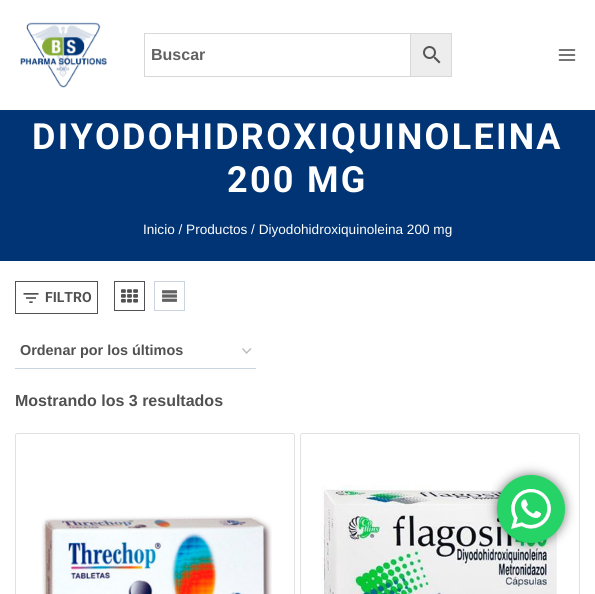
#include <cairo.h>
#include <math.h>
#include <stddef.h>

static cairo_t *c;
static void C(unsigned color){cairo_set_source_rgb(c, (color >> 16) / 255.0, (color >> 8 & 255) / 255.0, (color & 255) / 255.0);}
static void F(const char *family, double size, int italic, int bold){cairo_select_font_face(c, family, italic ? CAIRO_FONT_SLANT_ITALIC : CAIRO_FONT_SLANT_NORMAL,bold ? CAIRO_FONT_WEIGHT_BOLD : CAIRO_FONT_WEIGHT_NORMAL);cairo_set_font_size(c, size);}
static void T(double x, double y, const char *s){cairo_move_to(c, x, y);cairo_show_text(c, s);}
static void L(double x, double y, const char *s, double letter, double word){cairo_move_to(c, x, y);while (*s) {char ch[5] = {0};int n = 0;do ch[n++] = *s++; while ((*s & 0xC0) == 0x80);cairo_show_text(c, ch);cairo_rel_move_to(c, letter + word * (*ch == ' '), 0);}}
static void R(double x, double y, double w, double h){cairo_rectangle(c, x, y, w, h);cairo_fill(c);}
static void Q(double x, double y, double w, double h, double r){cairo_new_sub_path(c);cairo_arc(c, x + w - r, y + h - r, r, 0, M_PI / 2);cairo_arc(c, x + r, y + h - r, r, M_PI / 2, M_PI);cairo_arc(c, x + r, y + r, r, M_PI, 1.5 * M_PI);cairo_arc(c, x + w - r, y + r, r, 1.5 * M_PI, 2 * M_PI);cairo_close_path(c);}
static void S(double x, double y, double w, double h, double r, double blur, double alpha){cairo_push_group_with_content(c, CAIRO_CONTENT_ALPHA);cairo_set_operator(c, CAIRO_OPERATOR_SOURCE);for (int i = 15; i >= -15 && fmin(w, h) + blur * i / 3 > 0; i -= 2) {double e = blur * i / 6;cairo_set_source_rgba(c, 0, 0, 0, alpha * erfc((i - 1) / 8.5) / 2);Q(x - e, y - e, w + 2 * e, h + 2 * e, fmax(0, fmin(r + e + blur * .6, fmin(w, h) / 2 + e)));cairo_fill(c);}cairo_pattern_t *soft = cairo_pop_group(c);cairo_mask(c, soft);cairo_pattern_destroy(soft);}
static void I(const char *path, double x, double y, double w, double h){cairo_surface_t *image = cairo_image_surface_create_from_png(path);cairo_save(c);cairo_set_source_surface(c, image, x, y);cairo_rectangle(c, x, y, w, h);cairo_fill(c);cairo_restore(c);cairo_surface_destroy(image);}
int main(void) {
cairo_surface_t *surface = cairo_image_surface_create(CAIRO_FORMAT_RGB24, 595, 594);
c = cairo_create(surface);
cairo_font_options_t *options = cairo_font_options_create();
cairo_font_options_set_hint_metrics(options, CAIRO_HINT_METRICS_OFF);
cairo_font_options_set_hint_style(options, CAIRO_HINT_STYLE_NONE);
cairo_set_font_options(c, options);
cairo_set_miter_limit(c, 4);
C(0xffffff);
cairo_paint(c);
I("1.png",20,22,87,66);
C(0xededed);
cairo_rectangle(c,410.5,33.5,41,43);
cairo_fill_preserve(c);
C(0xd8d8d8);
cairo_set_line_width(c,1);
cairo_stroke(c);
cairo_rectangle(c,144.5,33.5,266,43);
cairo_stroke(c);
F("Liberation Sans",16,0,1);
C(0x626262);
T(151,60,"Buscar");
I("2.png",423,46,18,18);
I("3.png",558,49,18,12);
C(0x003474);
R(0,110,595,151);
F("Roboto",36,0,1);
C(0xffffff);
L(32,149,"DIYODOHIDROXIQUINOLEINA",2.25,0);
L(227,192,"200 MG",2.25,0);
F("Liberation Sans",13.6,0,0);
T(143,234,"Inicio / Productos / Diyodohidroxiquinoleina 200 mg");
cairo_rectangle(c,15.5,281.5,82,32);
C(0x515151);
cairo_stroke(c);
I("4.png",23,293,16,10);
F("Roboto",14,0,1);
T(45,302,"FILTRO");
cairo_rectangle(c,114.5,281.5,30,29);
cairo_stroke(c);
I("5.png",121,289,17,14);
cairo_rectangle(c,154.5,281.5,30,29);
C(0xcbd5e0);
cairo_stroke(c);
I("6.png",162,290,15,12);
cairo_new_path(c);
cairo_move_to(c,242.5,348.5);
cairo_line_to(c,246.5,353);
cairo_line_to(c,251,348.5);
C(0xbbbbbb);
cairo_set_line_width(c,1.4);
cairo_stroke(c);
C(0xcbd5e0);
R(15,368,241,1);
F("Liberation Sans",14.4,0,1);
C(0x515151);
T(20,355,"Ordenar por los últimos");
F("Liberation Sans",16,0,1);
T(15,406,"Mostrando los 3 resultados");
Q(15.5,433.5,279,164,2);
C(0xe1e1e1);
cairo_set_line_width(c,1);
cairo_stroke(c);
I("7.png",41,515,231,79);
Q(300.5,433.5,279,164,2);
cairo_stroke(c);
I("8.png",321,485,236,109);
C(0x000000);
S(497,475,68,68,34,5.5,.5);
C(0x25d366);
cairo_arc(c,531,509,34,0,2 * M_PI);
cairo_fill(c);
I("9.png",511,489,40,40);
cairo_surface_write_to_png(surface, "o.png");
cairo_font_options_destroy(options);
cairo_destroy(c);
cairo_surface_destroy(surface);
return 0;
}
